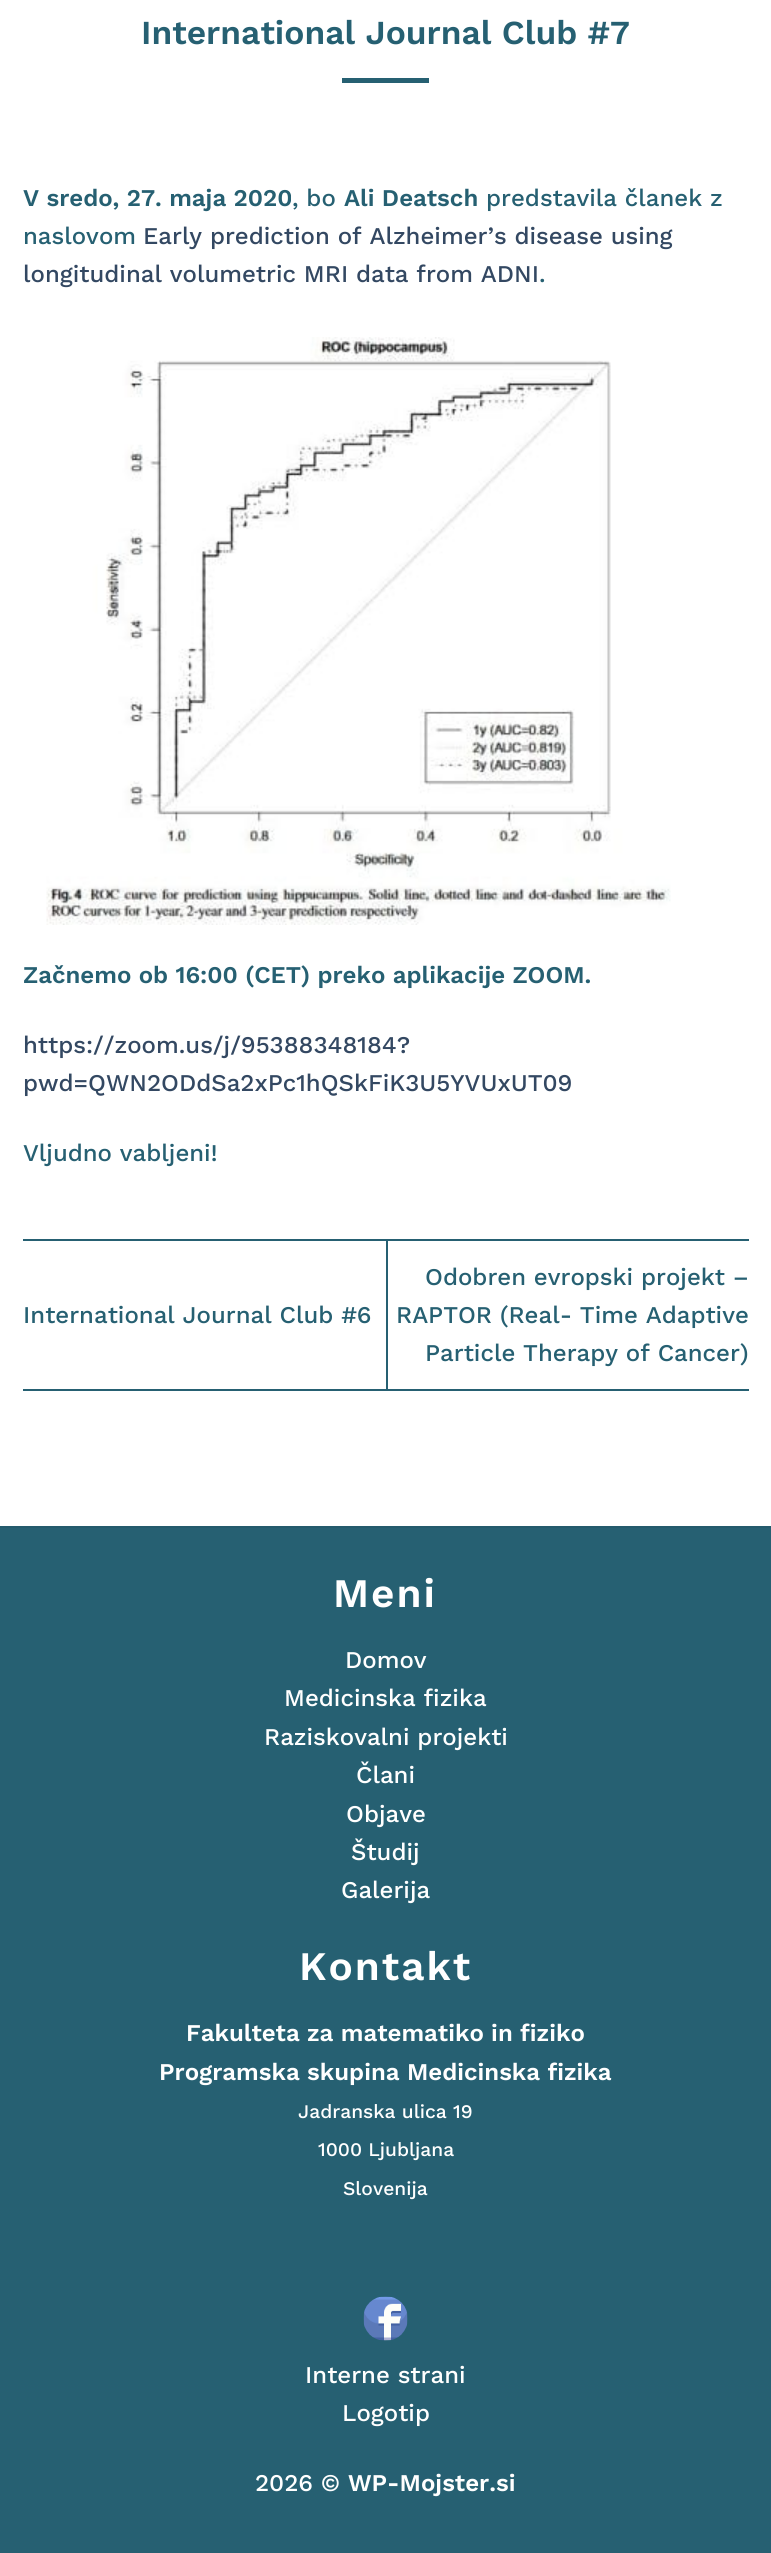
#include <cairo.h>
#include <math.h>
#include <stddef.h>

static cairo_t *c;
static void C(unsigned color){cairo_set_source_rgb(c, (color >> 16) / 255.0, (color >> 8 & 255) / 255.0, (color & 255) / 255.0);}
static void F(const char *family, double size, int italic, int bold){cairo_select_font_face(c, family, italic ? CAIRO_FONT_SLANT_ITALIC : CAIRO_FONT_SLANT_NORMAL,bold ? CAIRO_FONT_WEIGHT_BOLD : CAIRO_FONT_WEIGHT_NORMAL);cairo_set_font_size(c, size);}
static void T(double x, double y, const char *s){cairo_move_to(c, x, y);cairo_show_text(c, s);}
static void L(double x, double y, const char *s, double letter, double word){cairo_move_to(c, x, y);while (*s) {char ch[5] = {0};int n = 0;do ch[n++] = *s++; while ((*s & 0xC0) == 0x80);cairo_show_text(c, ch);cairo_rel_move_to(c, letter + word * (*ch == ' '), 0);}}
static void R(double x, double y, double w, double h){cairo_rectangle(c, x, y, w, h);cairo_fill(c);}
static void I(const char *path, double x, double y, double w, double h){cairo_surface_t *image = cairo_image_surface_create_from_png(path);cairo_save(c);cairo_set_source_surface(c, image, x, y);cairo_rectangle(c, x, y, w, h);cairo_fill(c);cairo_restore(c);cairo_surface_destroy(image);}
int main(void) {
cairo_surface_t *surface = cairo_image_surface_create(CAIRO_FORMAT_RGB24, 771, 2553);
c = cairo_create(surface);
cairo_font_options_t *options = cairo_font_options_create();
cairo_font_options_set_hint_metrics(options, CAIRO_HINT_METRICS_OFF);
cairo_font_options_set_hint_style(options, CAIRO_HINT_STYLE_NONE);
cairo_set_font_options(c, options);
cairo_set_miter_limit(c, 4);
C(0xffffff);
cairo_paint(c);
F("Work Sans SemiBold",33.6,0,0);
C(0x266072);
T(141,44,"International Journal Club #7");
R(342,78,87,5);
F("Work Sans SemiBold",24,0,0);
T(23,206,"V sredo, 27. maja 2020");
F("Work Sans Medium",24,0,0);
T(292,206,", bo");
F("Work Sans SemiBold",24,0,0);
T(344,206,"Ali Deatsch");
F("Work Sans Medium",24,0,0);
T(486,206,"predstavila članek z");
T(23,244,"naslovom");
C(0x334862);
T(143,244,"Early prediction of Alzheimer’s disease using");
T(23,282,"longitudinal volumetric MRI data from ADNI");
C(0x266072);
T(539,282,".");
I("1.png",46,337,625,588);
F("Work Sans SemiBold",24,0,0);
T(23,983,"Začnemo ob 16:00 (CET) preko aplikacije ZOOM.");
F("Work Sans Medium",24,0,0);
C(0x334862);
T(23,1053,"https://zoom.us/j/95388348184?");
T(23,1091,"pwd=QWN2ODdSa2xPc1hQSkFiK3U5YVUxUT09");
C(0x266072);
T(23,1161,"Vljudno vabljeni!");
R(23,1239,726,2);
R(23,1389,726,2);
T(23,1323,"International Journal Club #6");
R(386,1241,2,148);
T(425,1285,"Odobren evropski projekt –");
T(396,1323,"RAPTOR (Real- Time Adaptive");
T(425,1361,"Particle Therapy of Cancer)");
R(0,1528,771,1025);
C(0x245b6c);
R(0,1526,771,2);
F("Work Sans SemiBold",40.5,0,0);
C(0xffffff);
L(333,1607,"Meni",2,0);
F("Work Sans Medium",24,0,0);
T(345,1668,"Domov");
T(284,1706,"Medicinska fizika");
T(264,1745,"Raziskovalni projekti");
T(356,1783,"Člani");
T(346,1822,"Objave");
T(351,1860,"Študij");
T(341,1898,"Galerija");
F("Work Sans SemiBold",40.5,0,0);
L(299,1980,"Kontakt",2,0);
F("Work Sans SemiBold",24,0,0);
T(186,2041,"Fakulteta za matematiko in fiziko");
T(159,2080,"Programska skupina Medicinska fizika");
F("Work Sans Medium",19.25,0,0);
T(298,2118,"Jadranska ulica 19");
T(318,2156,"1000 Ljubljana");
T(343,2195,"Slovenija");
I("2.png",363,2296,45,45);
F("Work Sans Medium",24,0,0);
T(305,2383,"Interne strani");
T(342,2421,"Logotip");
T(255,2491,"2026 ©");
F("Work Sans SemiBold",24,0,0);
T(348,2491,"WP-Mojster.si");
cairo_surface_write_to_png(surface, "o.png");
cairo_font_options_destroy(options);
cairo_destroy(c);
cairo_surface_destroy(surface);
return 0;
}
